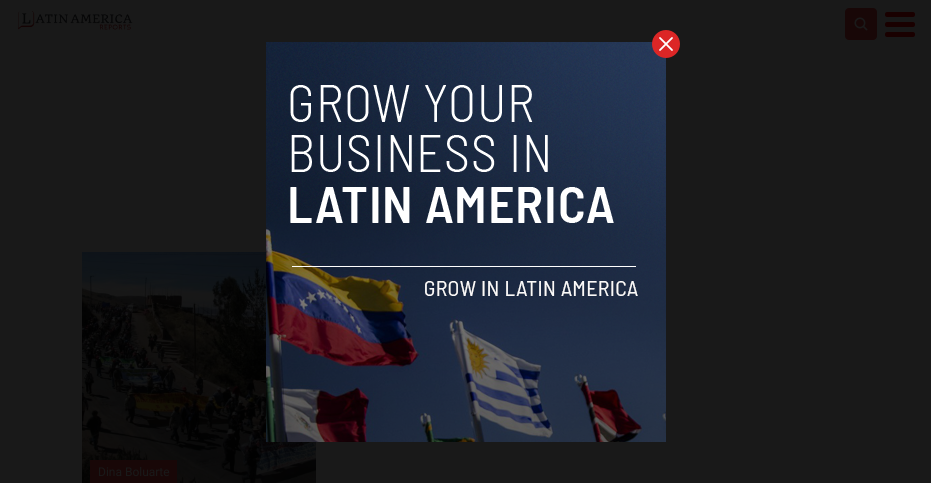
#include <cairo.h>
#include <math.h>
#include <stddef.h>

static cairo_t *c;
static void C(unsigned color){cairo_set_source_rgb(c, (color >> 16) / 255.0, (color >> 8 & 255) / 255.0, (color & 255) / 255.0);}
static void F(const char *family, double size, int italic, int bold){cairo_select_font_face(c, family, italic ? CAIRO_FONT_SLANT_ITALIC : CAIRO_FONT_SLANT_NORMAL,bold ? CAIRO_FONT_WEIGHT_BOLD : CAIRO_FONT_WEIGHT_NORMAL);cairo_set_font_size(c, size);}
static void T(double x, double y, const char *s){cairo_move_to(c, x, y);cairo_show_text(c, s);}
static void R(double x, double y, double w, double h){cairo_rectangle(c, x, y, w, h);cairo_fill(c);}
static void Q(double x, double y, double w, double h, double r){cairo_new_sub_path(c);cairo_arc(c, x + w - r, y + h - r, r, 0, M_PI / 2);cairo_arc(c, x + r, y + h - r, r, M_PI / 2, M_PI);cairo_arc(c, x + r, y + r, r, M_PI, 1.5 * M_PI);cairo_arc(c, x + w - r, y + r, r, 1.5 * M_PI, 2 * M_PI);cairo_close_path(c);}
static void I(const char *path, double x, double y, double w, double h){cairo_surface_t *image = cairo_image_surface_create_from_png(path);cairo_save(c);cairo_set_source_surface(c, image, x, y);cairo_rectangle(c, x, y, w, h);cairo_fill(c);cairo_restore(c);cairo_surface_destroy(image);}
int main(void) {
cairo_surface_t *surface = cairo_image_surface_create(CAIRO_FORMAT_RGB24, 931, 483);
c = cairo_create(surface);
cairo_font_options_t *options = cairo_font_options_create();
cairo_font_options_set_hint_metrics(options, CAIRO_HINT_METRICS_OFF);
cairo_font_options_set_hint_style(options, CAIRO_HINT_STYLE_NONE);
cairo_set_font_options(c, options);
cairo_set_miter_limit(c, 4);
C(0x191919);
cairo_paint(c);
I("1.png",18,11,115,19);
C(0x180707);
Q(845,8,32,32,4);
cairo_fill(c);
I("2.png",854,17,14,14);
C(0x190000);
Q(885,12,30,5,2);
cairo_fill(c);
Q(885,22,30,5,2);
cairo_fill(c);
Q(885,32,30,5,2);
cairo_fill(c);
I("4.png",82,252,234,231);
I("3.png",266,42,400,400);
C(0xdc2626);
cairo_arc(c,666,44,14,0,2 * M_PI);
cairo_fill(c);
cairo_new_path(c);
cairo_move_to(c,672,50);
cairo_line_to(c,660,38);
cairo_move_to(c,672,38);
cairo_line_to(c,660,50);
C(0xffffff);
cairo_set_line_width(c,1.8);
cairo_set_line_cap(c,CAIRO_LINE_CAP_ROUND);
cairo_set_line_join(c,CAIRO_LINE_JOIN_ROUND);
cairo_stroke(c);
C(0x180707);
R(90,460,87,23);
F("Roboto",12,0,0);
C(0x191919);
T(98,476,"Dina Boluarte");
cairo_surface_write_to_png(surface, "o.png");
cairo_font_options_destroy(options);
cairo_destroy(c);
cairo_surface_destroy(surface);
return 0;
}
